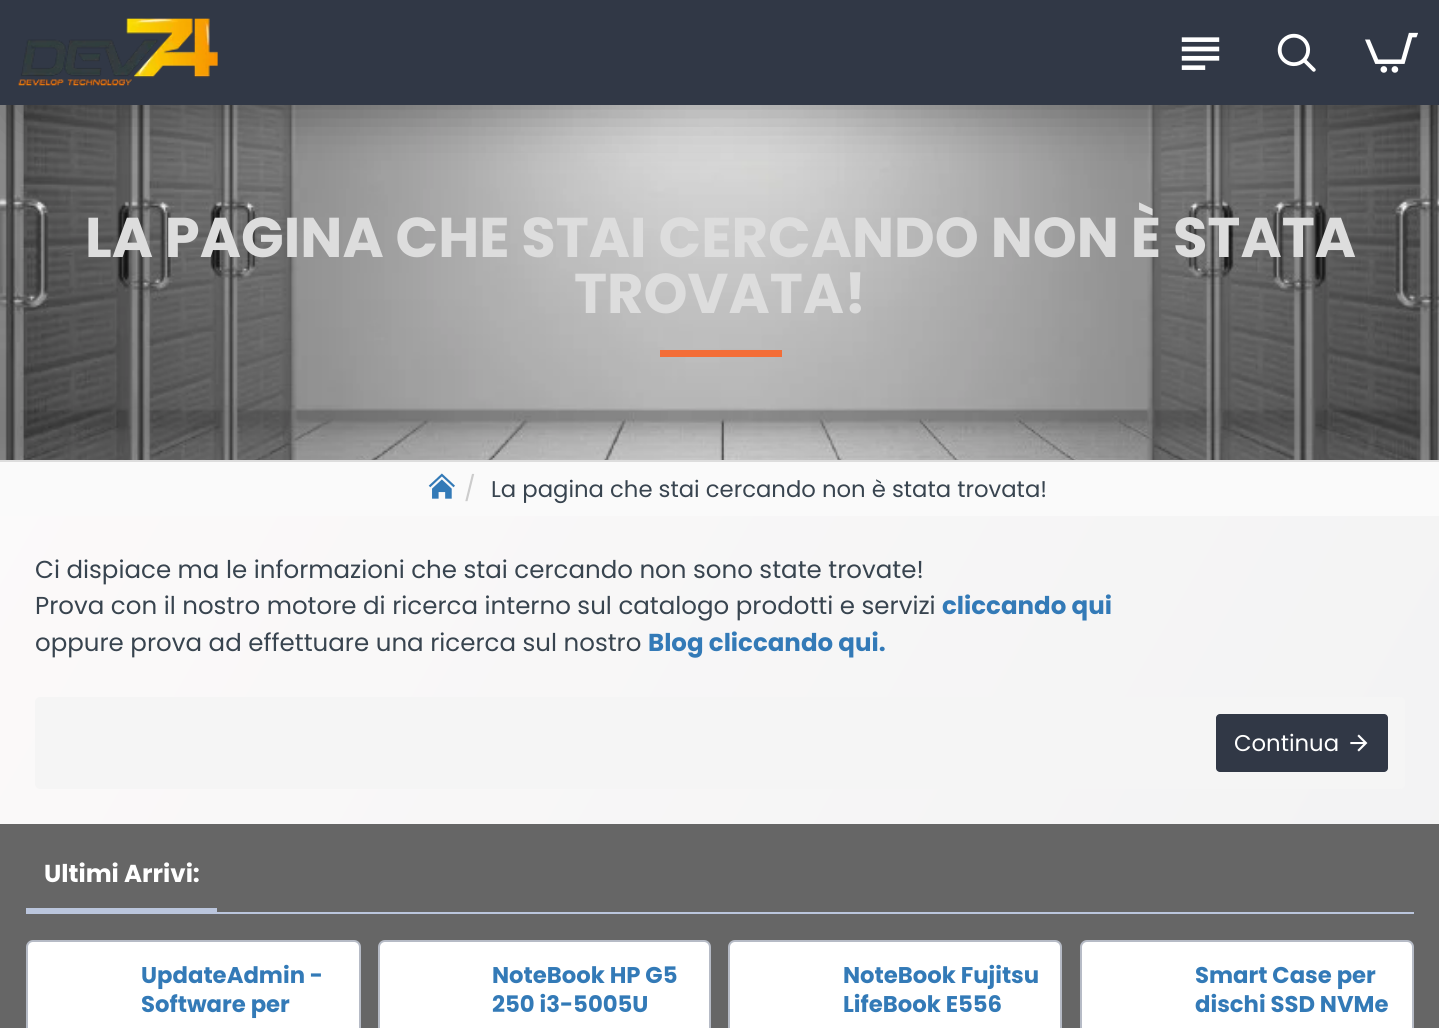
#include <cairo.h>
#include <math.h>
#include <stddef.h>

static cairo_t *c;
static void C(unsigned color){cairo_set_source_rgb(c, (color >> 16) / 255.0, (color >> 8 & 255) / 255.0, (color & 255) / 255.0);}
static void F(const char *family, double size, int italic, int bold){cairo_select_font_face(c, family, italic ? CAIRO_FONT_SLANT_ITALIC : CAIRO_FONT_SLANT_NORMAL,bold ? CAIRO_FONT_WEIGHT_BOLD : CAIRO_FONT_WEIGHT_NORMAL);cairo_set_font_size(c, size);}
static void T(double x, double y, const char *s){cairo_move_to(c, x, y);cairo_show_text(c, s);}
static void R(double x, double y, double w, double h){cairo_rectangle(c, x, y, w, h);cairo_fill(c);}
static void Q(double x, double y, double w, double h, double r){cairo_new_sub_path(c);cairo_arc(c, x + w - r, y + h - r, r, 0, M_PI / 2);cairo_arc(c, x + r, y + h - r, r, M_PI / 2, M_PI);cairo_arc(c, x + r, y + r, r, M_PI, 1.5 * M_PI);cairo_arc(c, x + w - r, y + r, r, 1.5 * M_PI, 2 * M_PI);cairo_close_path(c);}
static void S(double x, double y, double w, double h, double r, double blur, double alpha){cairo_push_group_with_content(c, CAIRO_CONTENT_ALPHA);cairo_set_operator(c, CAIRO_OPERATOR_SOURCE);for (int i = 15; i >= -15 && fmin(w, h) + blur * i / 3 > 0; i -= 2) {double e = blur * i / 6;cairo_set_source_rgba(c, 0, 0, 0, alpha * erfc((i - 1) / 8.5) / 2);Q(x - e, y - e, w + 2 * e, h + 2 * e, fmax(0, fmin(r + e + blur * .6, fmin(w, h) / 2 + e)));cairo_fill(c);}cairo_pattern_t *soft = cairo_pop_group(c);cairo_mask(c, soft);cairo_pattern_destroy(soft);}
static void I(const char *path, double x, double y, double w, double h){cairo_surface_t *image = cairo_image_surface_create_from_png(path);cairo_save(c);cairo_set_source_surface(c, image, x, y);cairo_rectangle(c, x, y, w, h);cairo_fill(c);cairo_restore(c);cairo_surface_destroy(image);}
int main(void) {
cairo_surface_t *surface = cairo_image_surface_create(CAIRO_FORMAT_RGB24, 1439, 1028);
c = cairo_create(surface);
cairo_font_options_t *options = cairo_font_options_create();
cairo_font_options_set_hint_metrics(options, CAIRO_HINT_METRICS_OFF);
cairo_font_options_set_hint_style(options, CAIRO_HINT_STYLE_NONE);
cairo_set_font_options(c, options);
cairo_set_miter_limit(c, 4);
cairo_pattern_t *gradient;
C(0xffffff);
cairo_paint(c);
gradient = cairo_pattern_create_linear(-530,919,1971,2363);
cairo_pattern_add_color_stop_rgba(gradient,0,0.992,0.984,0.984,1);
cairo_pattern_add_color_stop_rgba(gradient,1,0.922,0.929,0.933,1);
cairo_set_source(c,gradient);
cairo_pattern_destroy(gradient);
R(0,516,1439,308);
I("5.png",0,105,1439,355);
C(0x000000);
S(18,26,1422,88,0,26,.3);
C(0x313846);
R(0,0,1439,105);
I("1.png",18,18,200,68);
I("2.png",1181,37,39,33);
I("3.png",1277,33,39,39);
I("4.png",1365,32,53,41);
C(0xdddddd);
R(0,460,1439,2);
F("Poppins",56,0,1);
T(85,257,"LA PAGINA CHE STAI CERCANDO NON È STATA");
T(574,313,"TROVATA!");
C(0xf36d37);
R(660,350,122,7);
C(0xfafafa);
R(0,462,1439,54);
I("6.png",428,473,27,26);
F("Poppins",24.5,0,0);
C(0xcccccc);
T(464,497,"/");
F("Poppins",22.75,0,0);
C(0x38444f);
T(491,497,"La pagina che stai cercando non è stata trovata!");
F("Poppins",24.5,0,0);
T(35,578,"Ci dispiace ma le informazioni che stai cercando non sono state trovate!");
T(35,614,"Prova con il nostro motore di ricerca interno sul catalogo prodotti e servizi");
F("Poppins",24.5,0,1);
C(0x337ab7);
T(942,614,"cliccando qui");
F("Poppins",24.5,0,0);
C(0x38444f);
T(35,651,"oppure prova ad effettuare una ricerca sul nostro");
F("Poppins",24.5,0,1);
C(0x337ab7);
T(648,651,"Blog cliccando qui.");
C(0xf5f5f5);
Q(35,697,1370,92,5);
cairo_fill(c);
C(0x313846);
Q(1216,714,172,58,4);
cairo_fill(c);
F("Poppins",22.75,0,0);
C(0xffffff);
T(1234,751,"Continua");
I("7.png",1350,734,18,18);
C(0x666666);
R(0,824,1439,204);
C(0xbbc6dd);
R(26,912,1388,2);
R(26,908,191,4);
F("Poppins",24.5,0,1);
C(0xffffff);
T(44,882,"Ultimi Arrivi:");
Q(27,941,333,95,6);
cairo_fill_preserve(c);
C(0xb6bbc6);
cairo_stroke(c);
F("Poppins",22.75,0,1);
C(0x337ab7);
T(141,983,"UpdateAdmin -");
T(141,1012,"Software per");
C(0xffffff);
Q(379,941,331,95,6);
cairo_fill_preserve(c);
C(0xb6bbc6);
cairo_stroke(c);
C(0x337ab7);
T(492,983,"NoteBook HP G5");
T(492,1012,"250 i3-5005U");
C(0xffffff);
Q(729,941,332,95,6);
cairo_fill_preserve(c);
C(0xb6bbc6);
cairo_stroke(c);
C(0x337ab7);
T(843,983,"NoteBook Fujitsu");
T(843,1012,"LifeBook E556");
C(0xffffff);
Q(1081,941,332,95,6);
cairo_fill_preserve(c);
C(0xb6bbc6);
cairo_stroke(c);
C(0x337ab7);
T(1195,983,"Smart Case per");
T(1195,1012,"dischi SSD NVMe");
cairo_surface_write_to_png(surface, "o.png");
cairo_font_options_destroy(options);
cairo_destroy(c);
cairo_surface_destroy(surface);
return 0;
}
